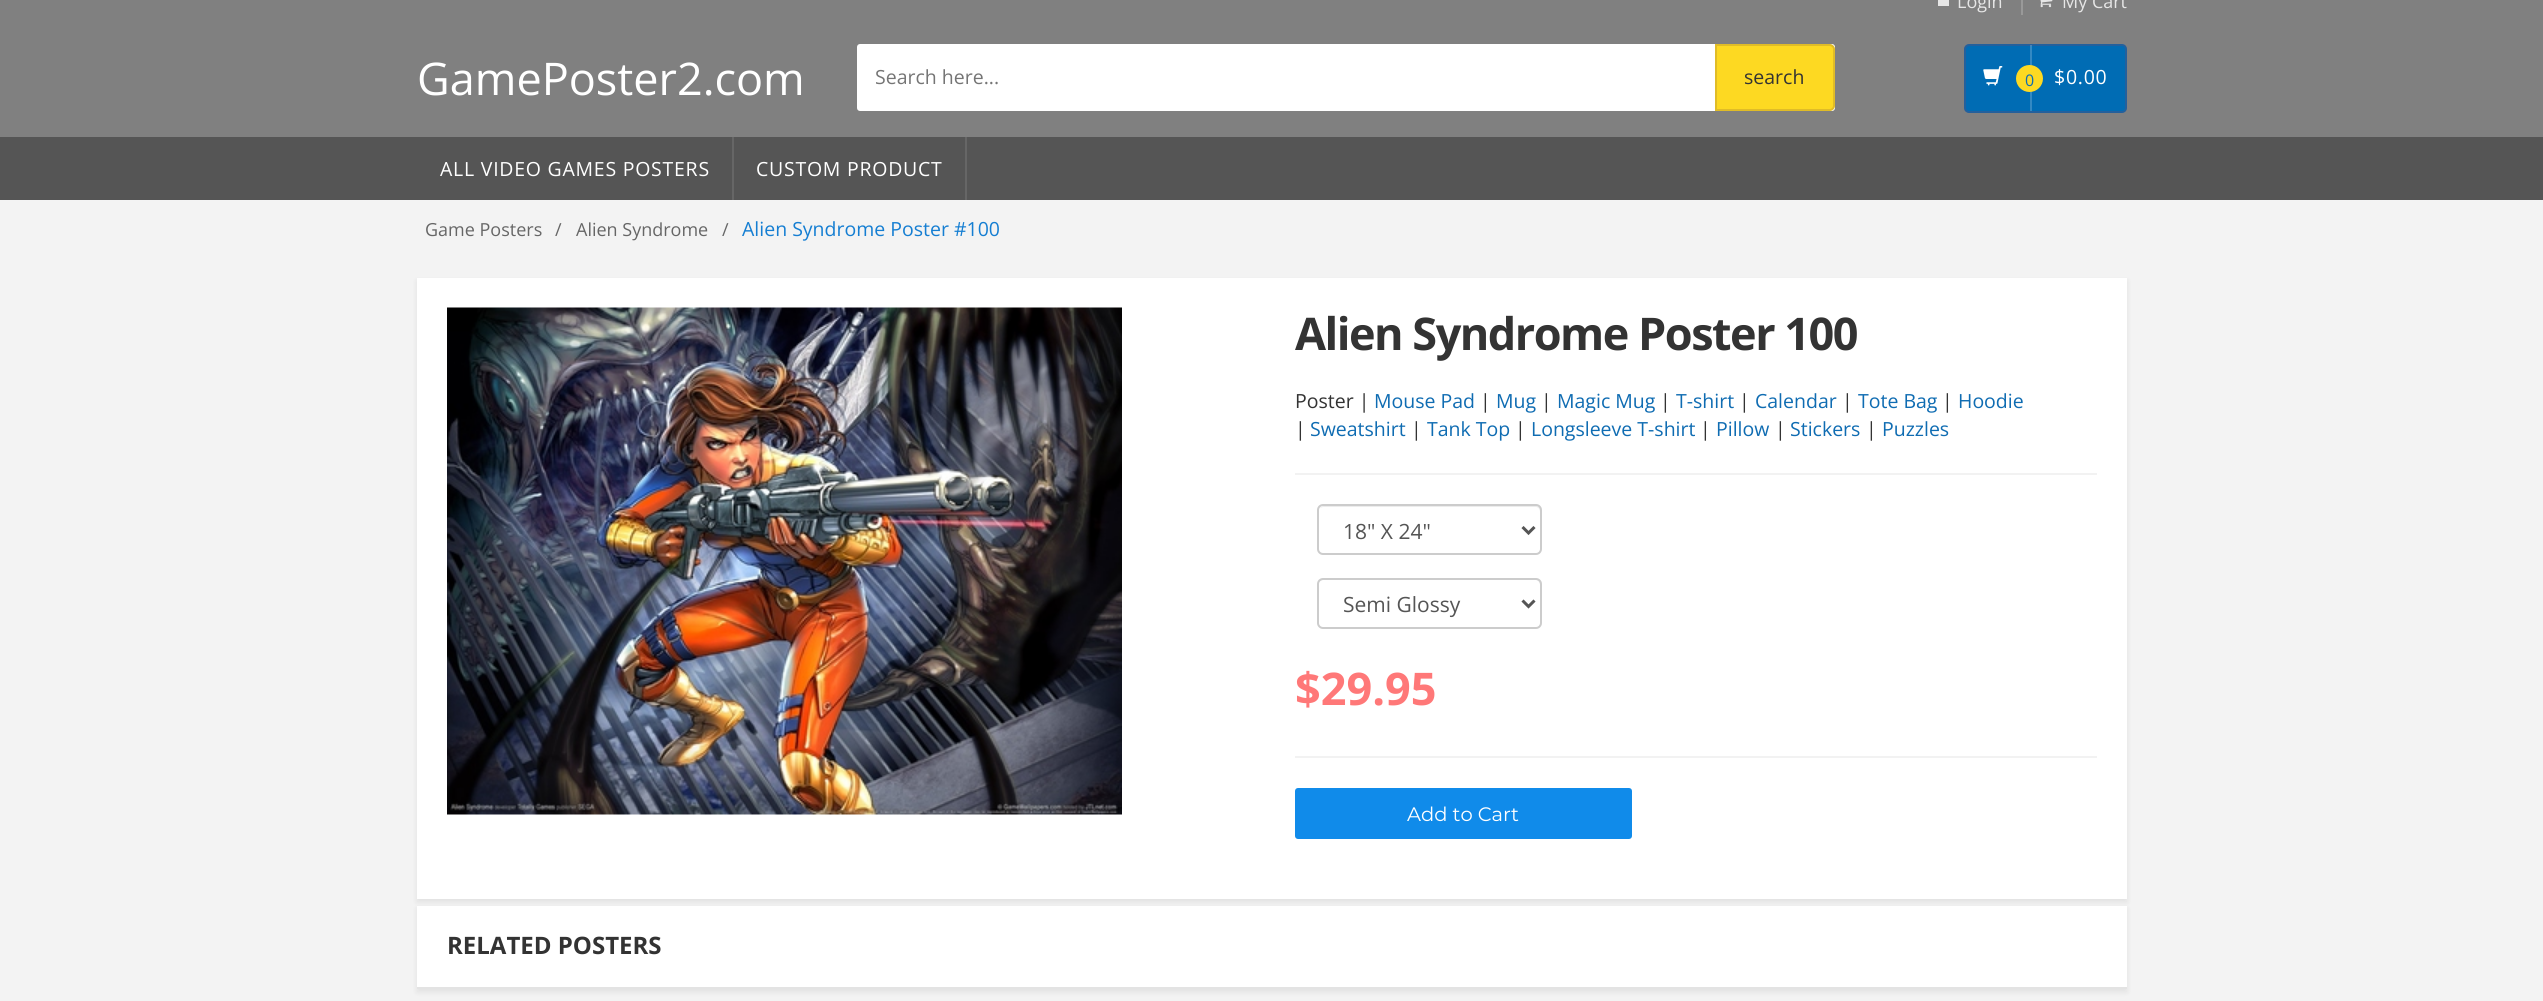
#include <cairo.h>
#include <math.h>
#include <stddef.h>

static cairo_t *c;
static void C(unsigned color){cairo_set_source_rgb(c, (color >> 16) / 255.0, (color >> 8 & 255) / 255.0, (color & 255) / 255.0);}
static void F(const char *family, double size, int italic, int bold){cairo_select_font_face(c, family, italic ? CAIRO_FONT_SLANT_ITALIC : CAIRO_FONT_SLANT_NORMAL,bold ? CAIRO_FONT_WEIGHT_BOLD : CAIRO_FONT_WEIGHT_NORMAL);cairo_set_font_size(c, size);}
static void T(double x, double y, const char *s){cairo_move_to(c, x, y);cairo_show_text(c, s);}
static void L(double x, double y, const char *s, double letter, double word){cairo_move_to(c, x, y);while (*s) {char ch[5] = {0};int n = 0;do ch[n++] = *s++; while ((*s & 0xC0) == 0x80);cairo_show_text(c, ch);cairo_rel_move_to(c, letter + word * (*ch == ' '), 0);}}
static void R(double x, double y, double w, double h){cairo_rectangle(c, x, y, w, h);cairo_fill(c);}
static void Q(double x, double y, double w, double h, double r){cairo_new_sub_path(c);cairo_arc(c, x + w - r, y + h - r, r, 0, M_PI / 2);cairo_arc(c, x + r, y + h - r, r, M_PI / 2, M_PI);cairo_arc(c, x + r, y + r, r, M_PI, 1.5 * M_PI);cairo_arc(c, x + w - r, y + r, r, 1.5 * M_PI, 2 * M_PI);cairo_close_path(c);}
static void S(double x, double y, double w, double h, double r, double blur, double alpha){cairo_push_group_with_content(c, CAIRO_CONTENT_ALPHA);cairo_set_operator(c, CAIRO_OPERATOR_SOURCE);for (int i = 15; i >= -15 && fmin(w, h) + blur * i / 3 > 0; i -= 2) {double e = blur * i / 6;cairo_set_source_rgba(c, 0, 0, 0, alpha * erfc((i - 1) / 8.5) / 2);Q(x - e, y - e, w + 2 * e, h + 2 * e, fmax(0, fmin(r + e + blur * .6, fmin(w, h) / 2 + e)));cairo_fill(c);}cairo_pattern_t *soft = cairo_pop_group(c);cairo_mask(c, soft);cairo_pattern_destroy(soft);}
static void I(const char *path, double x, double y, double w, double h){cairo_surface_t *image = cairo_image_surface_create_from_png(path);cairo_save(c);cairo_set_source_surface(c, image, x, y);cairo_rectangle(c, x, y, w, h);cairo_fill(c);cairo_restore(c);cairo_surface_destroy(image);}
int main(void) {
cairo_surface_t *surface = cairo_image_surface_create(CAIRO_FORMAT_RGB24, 2543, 1001);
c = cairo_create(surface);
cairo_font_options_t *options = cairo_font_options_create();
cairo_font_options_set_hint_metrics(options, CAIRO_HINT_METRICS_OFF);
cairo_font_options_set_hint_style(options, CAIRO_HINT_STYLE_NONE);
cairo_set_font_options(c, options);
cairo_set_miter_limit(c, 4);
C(0xf3f3f3);
cairo_paint(c);
C(0x808080);
R(0,0,2543,137);
C(0x999999);
R(2021,0,2,15);
C(0xe6e6e6);
R(1938,0,11,6);
F("Open Sans",18,0,0);
T(1957,8,"Login");
I("1.png",2040,0,13,8);
T(2062,8,"My Cart");
F("Open Sans",45,0,0);
C(0xffffff);
T(417,95,"GamePoster2.com");
Q(857,44,978,67,3);
cairo_fill(c);
F("Open Sans",19.5,0,0);
C(0x757575);
T(875,84,"Search here...");
C(0xfdd922);
cairo_new_path(c);
cairo_move_to(c,1716,45);
cairo_line_to(c,1830,45);
cairo_curve_to(c,1832,45,1834,47,1834,49);
cairo_line_to(c,1834,106);
cairo_curve_to(c,1834,108,1832,110,1830,110);
cairo_line_to(c,1716,110);
cairo_close_path(c);
cairo_fill_preserve(c);
C(0xe0bc27);
cairo_stroke(c);
C(0x333333);
T(1744,84,"search");
C(0x006cb4);
Q(1965,45,161,67,4);
cairo_fill_preserve(c);
C(0x24609c);
cairo_stroke(c);
cairo_set_source_rgba(c,1,1,1,0.2);
R(2030,45,2,66);
I("2.png",1983,66,20,20);
C(0xffffff);
L(2054,84,"$0.00",.75,0);
C(0xfdd922);
cairo_new_path(c);
cairo_arc(c,2029.5,78.5,13.5,0,2 * M_PI);
cairo_fill(c);
F("Open Sans",16,0,0);
C(0x0f6cb2);
T(2025,86,"0");
C(0x555555);
R(0,137,2543,63);
C(0x666666);
R(732,137,2,63);
F("Open Sans",19.5,0,0);
C(0xffffff);
L(440,176,"ALL VIDEO GAMES POSTERS",.75,0);
C(0x666666);
R(965,137,2,63);
C(0xffffff);
L(756,176,"CUSTOM PRODUCT",.75,0);
F("Open Sans",18,0,0);
C(0x666666);
T(425,236,"Game Posters");
T(555,236,"/");
T(576,236,"Alien Syndrome");
T(722,236,"/");
F("Open Sans",19.5,0,0);
C(0x157ed2);
T(742,236,"Alien Syndrome Poster #100");
C(0x000000);
S(417,281,1710,621,0,3,.08);
C(0xffffff);
R(417,278,1710,621);
I("3.png",447,307,675,508);
F("Open Sans",45,0,1);
C(0x333333);
L(1295,350,"Alien Syndrome Poster 100",-1.5,0);
F("Open Sans",19.5,0,0);
T(1295,408,"Poster |");
C(0x0f6cb2);
T(1374,408,"Mouse Pad");
C(0x333333);
T(1480,408,"|");
C(0x0f6cb2);
T(1496,408,"Mug");
C(0x333333);
T(1541,408,"|");
C(0x0f6cb2);
T(1557,408,"Magic Mug");
C(0x333333);
T(1660,408,"|");
C(0x0f6cb2);
T(1676,408,"T-shirt");
C(0x333333);
T(1739,408,"|");
C(0x0f6cb2);
T(1755,408,"Calendar");
C(0x333333);
T(1842,408,"|");
C(0x0f6cb2);
T(1858,408,"Tote Bag");
C(0x333333);
T(1942,408,"|");
C(0x0f6cb2);
T(1958,408,"Hoodie");
C(0x333333);
T(1295,436,"|");
C(0x0f6cb2);
T(1310,436,"Sweatshirt");
C(0x333333);
T(1411,436,"|");
C(0x0f6cb2);
T(1427,436,"Tank Top");
C(0x333333);
T(1515,436,"|");
C(0x0f6cb2);
T(1531,436,"Longsleeve T-shirt");
C(0x333333);
T(1700,436,"|");
C(0x0f6cb2);
T(1716,436,"Pillow");
C(0x333333);
T(1775,436,"|");
C(0x0f6cb2);
T(1790,436,"Stickers");
C(0x333333);
T(1866,436,"|");
C(0x0f6cb2);
T(1882,436,"Puzzles");
C(0xf2f2f2);
R(1295,473,802,2);
R(1295,756,802,2);
C(0xececec);
cairo_new_path(c);
cairo_move_to(c,1323,507);
cairo_line_to(c,1536,507);
cairo_curve_to(c,1538,507,1540,509,1540,512);
cairo_line_to(c,1540,550);
cairo_line_to(c,1539,553);
cairo_curve_to(c,1540,552,1541,550,1541,549);
cairo_line_to(c,1541,511);
cairo_curve_to(c,1541,508,1539,506,1536,506);
cairo_line_to(c,1324,506);
cairo_curve_to(c,1322,506,1321,507,1320,508);
cairo_close_path(c);
cairo_fill(c);
Q(1318,505,223,49,5);
C(0xcccccc);
cairo_stroke(c);
cairo_new_path(c);
cairo_move_to(c,1522.5,527);
cairo_line_to(c,1528.5,533);
cairo_line_to(c,1534.5,527);
C(0x555555);
cairo_set_line_width(c,3);
cairo_stroke(c);
F("Open Sans",21,0,0);
T(1343,539,"18\" X 24\"");
C(0xececec);
cairo_new_path(c);
cairo_move_to(c,1323,580);
cairo_line_to(c,1536,580);
cairo_curve_to(c,1538,580,1540,583,1540,585);
cairo_line_to(c,1540,625);
cairo_curve_to(c,1541,624,1541,623,1541,622);
cairo_line_to(c,1541,584);
cairo_curve_to(c,1541,581,1539,579,1536,579);
cairo_line_to(c,1324,579);
cairo_curve_to(c,1322,579,1320,580,1319,582);
cairo_curve_to(c,1320,581,1322,580,1323,580);
cairo_close_path(c);
cairo_fill(c);
Q(1318,579,223,49,5);
C(0xcccccc);
cairo_set_line_width(c,2);
cairo_stroke(c);
cairo_new_path(c);
cairo_move_to(c,1522.5,600.5);
cairo_line_to(c,1528.5,606.5);
cairo_line_to(c,1534.5,600.5);
C(0x555555);
cairo_set_line_width(c,3);
cairo_stroke(c);
T(1343,612,"Semi Glossy");
F("Open Sans",45,0,1);
C(0xff7878);
T(1295,705,"$29.95");
C(0x108bea);
Q(1295,788,337,51,3);
cairo_fill(c);
F("Montserrat",19.5,0,0);
C(0xffffff);
T(1407,821,"Add to Cart");
C(0x000000);
S(417,909,1710,83,0,3,.08);
C(0xffffff);
R(417,906,1710,81);
C(0xe3e3e3);
R(417,987,1710,2);
F("Open Sans",24,0,1);
C(0x333333);
T(447,954,"RELATED POSTERS");
cairo_surface_write_to_png(surface, "o.png");
cairo_font_options_destroy(options);
cairo_destroy(c);
cairo_surface_destroy(surface);
return 0;
}
